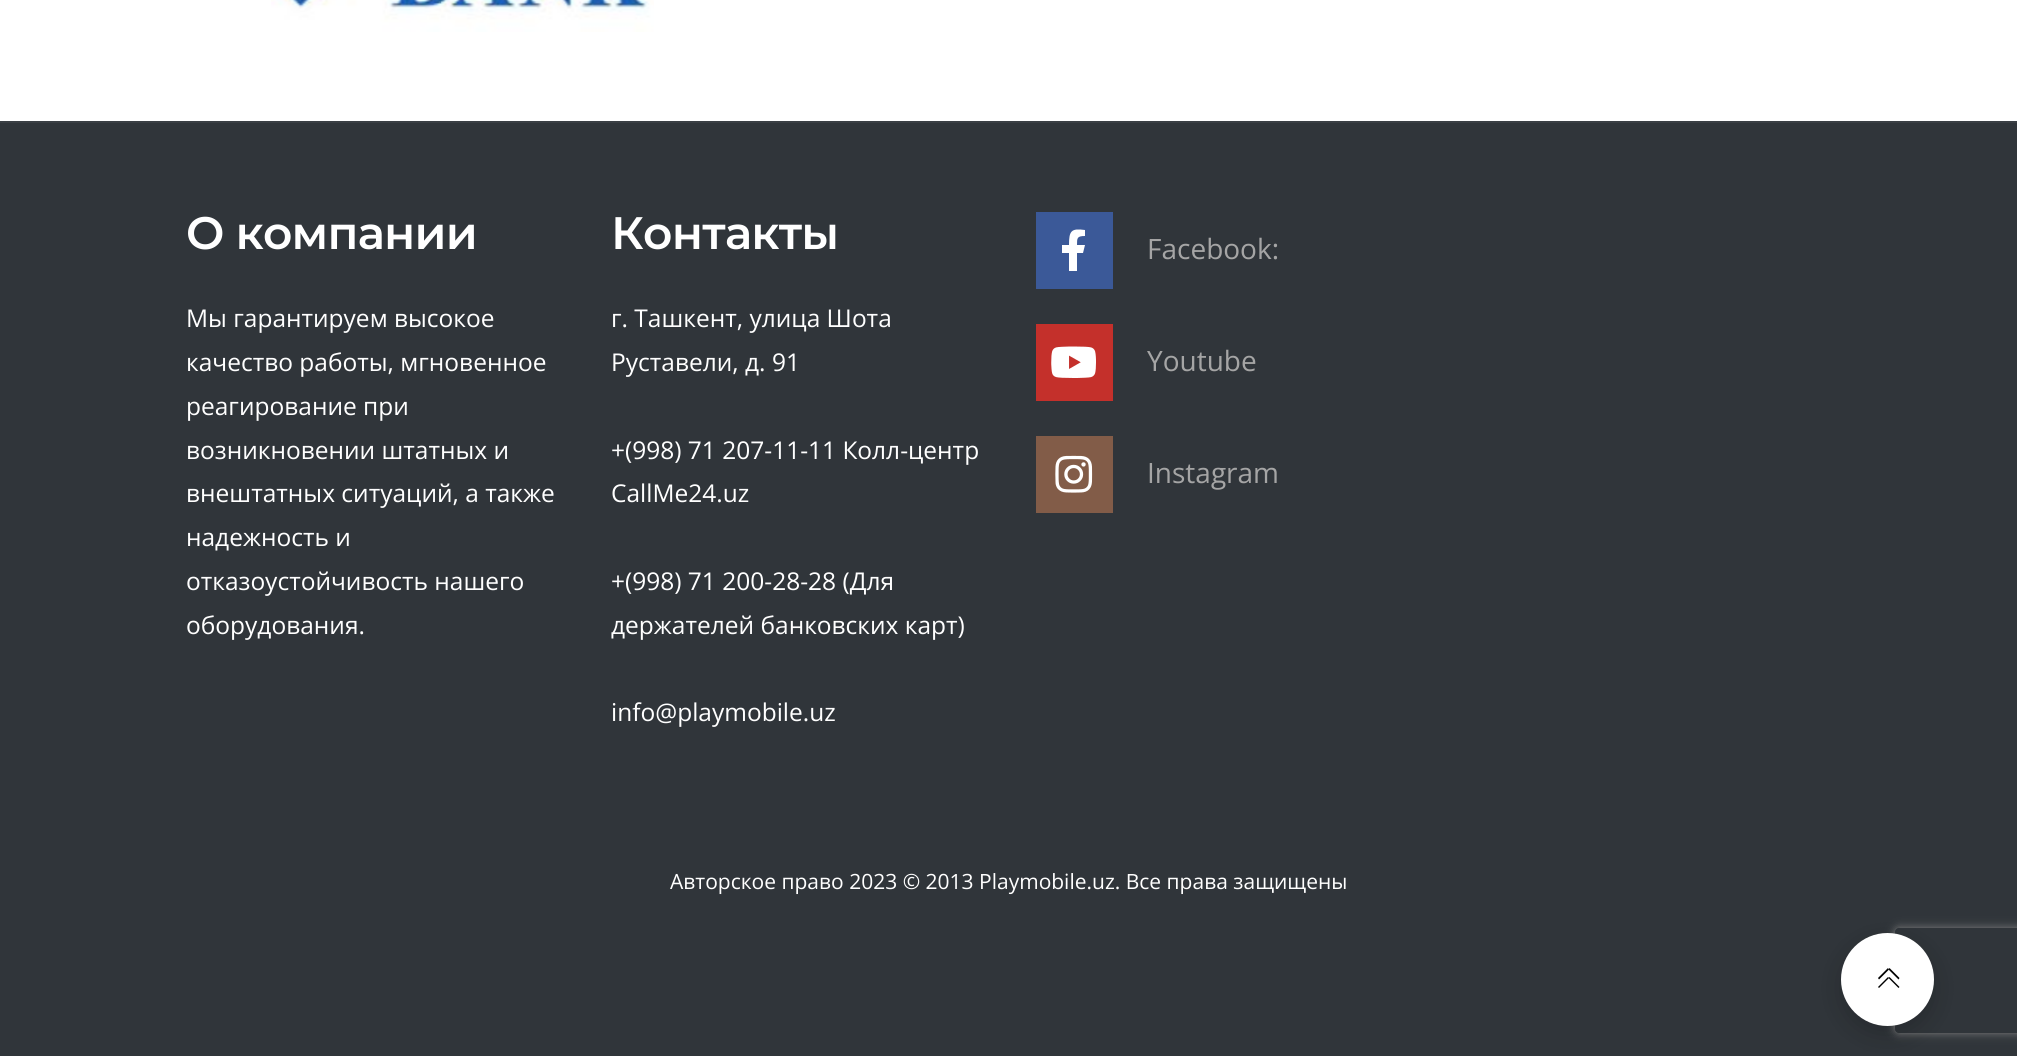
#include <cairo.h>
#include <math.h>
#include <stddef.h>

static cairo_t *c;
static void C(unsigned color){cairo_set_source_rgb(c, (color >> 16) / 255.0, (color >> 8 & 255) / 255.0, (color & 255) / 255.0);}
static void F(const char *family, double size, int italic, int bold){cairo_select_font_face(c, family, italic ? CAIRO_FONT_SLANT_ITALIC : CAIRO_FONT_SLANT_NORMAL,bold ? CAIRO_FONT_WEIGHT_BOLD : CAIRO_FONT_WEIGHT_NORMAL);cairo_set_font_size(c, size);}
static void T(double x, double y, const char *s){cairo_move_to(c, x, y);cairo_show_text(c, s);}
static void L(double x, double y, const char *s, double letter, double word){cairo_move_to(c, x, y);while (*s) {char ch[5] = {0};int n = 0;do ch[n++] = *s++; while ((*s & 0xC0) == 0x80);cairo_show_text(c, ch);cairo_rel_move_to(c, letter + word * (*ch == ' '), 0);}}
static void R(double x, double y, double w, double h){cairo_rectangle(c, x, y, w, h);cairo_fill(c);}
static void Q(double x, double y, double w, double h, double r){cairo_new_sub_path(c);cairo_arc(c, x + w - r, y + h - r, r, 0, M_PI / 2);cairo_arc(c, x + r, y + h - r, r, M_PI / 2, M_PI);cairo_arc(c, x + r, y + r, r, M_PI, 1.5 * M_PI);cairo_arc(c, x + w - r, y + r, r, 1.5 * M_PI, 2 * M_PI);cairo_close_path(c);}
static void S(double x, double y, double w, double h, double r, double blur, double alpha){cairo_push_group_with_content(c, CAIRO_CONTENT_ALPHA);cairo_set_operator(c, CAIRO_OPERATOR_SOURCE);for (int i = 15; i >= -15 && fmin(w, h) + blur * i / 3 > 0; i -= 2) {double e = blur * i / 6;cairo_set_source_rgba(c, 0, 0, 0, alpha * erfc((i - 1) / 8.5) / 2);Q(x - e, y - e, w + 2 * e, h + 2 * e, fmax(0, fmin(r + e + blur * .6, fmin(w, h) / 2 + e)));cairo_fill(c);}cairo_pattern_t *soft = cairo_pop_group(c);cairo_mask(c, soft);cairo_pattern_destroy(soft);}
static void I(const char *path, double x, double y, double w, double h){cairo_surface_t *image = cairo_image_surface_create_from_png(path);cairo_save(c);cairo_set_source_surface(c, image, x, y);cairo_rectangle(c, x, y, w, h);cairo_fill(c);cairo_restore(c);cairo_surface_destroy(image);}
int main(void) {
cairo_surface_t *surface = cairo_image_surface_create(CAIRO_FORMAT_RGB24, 2017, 1056);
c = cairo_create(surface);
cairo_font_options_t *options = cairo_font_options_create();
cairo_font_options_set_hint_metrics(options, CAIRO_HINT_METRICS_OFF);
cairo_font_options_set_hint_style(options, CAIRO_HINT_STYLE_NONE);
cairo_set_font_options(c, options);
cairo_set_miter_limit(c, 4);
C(0xffffff);
cairo_paint(c);
I("1.png",271,0,383,32);
C(0x30353a);
R(0,123,2017,933);
C(0x3a3f44);
R(0,121,2017,2);
F("Montserrat SemiBold",45.5,0,0);
C(0xffffff);
L(186,249,"О компании",-.75,0);
F("Open Sans",24.5,0,0);
T(186,327,"Мы гарантируем высокое");
T(186,371,"качество работы, мгновенное");
T(186,415,"реагирование при");
T(186,459,"возникновении штатных и");
T(186,502,"внештатных ситуаций, а также");
T(186,546,"надежность и");
T(186,590,"отказоустойчивость нашего");
T(186,634,"оборудования.");
F("Montserrat SemiBold",45.5,0,0);
L(611,249,"Контакты",-.75,0);
F("Open Sans",24.5,0,0);
T(611,327,"г. Ташкент, улица Шота");
T(611,371,"Руставели, д. 91");
T(611,459,"+(998) 71 207-11-11 Колл-центр");
T(611,502,"CallMe24.uz");
T(611,590,"+(998) 71 200-28-28 (Для");
T(611,634,"держателей банковских карт)");
T(611,721,"info@playmobile.uz");
C(0x3b5998);
R(1036,212,77,77);
C(0xffffff);
cairo_new_path(c);
cairo_move_to(c,1083,253);
cairo_line_to(c,1077,253);
cairo_line_to(c,1077,271);
cairo_line_to(c,1069,271);
cairo_line_to(c,1069,253);
cairo_line_to(c,1062,253);
cairo_line_to(c,1062,245);
cairo_line_to(c,1069,245);
cairo_curve_to(c,1069,231,1071,228,1085,230);
cairo_line_to(c,1085,236);
cairo_curve_to(c,1077,236,1077,238,1077,245);
cairo_line_to(c,1085,245);
cairo_close_path(c);
cairo_fill(c);
F("Open Sans",28,0,0);
C(0xa5a5a5);
T(1147,259,"Facebook:");
C(0xc4302b);
R(1036,324,77,77);
I("2.png",1051,346,45,32);
C(0xa5a5a5);
T(1147,371,"Youtube");
C(0x825c48);
R(1036,436,77,77);
I("3.png",1055,455,38,38);
C(0xa5a5a5);
T(1147,483,"Instagram");
F("Open Sans",21,0,0);
C(0xffffff);
T(670,889,"Авторское право 2023 © 2013 Playmobile.uz. Все права защищены");
C(0x000000);
S(1841,942,93,92,46,13,.2);
cairo_save(c);
cairo_set_fill_rule(c,CAIRO_FILL_RULE_EVEN_ODD);
cairo_new_path(c);
cairo_move_to(c,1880,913);
cairo_line_to(c,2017,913);
cairo_line_to(c,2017,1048);
cairo_line_to(c,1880,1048);
cairo_close_path(c);
cairo_move_to(c,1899,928);
cairo_line_to(c,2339,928);
cairo_curve_to(c,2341,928,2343,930,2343,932);
cairo_line_to(c,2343,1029);
cairo_curve_to(c,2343,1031,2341,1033,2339,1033);
cairo_line_to(c,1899,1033);
cairo_curve_to(c,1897,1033,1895,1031,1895,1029);
cairo_line_to(c,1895,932);
cairo_curve_to(c,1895,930,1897,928,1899,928);
cairo_close_path(c);
cairo_clip(c);
C(0x808080);
S(1895,928,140,105,4,4.5,1);
cairo_restore(c);
C(0xffffff);
cairo_arc(c,1887.5,979.5,46.5,0,2 * M_PI);
cairo_fill(c);
C(0x000000);
cairo_new_path(c);
cairo_move_to(c,1878,978);
cairo_line_to(c,1888,968);
cairo_line_to(c,1889,969.5);
cairo_line_to(c,1879,979.5);
cairo_close_path(c);
cairo_fill(c);
cairo_new_path(c);
cairo_move_to(c,1878,987);
cairo_line_to(c,1888,977);
cairo_line_to(c,1889,978);
cairo_line_to(c,1879,988);
cairo_close_path(c);
cairo_fill(c);
cairo_new_path(c);
cairo_move_to(c,1889.5,977);
cairo_line_to(c,1899.5,987);
cairo_line_to(c,1898.5,988);
cairo_line_to(c,1888.5,978);
cairo_close_path(c);
cairo_fill(c);
cairo_new_path(c);
cairo_move_to(c,1889.5,968);
cairo_line_to(c,1899.5,978);
cairo_line_to(c,1898.5,979.5);
cairo_line_to(c,1888.5,969.5);
cairo_close_path(c);
cairo_fill(c);
cairo_surface_write_to_png(surface, "o.png");
cairo_font_options_destroy(options);
cairo_destroy(c);
cairo_surface_destroy(surface);
return 0;
}
